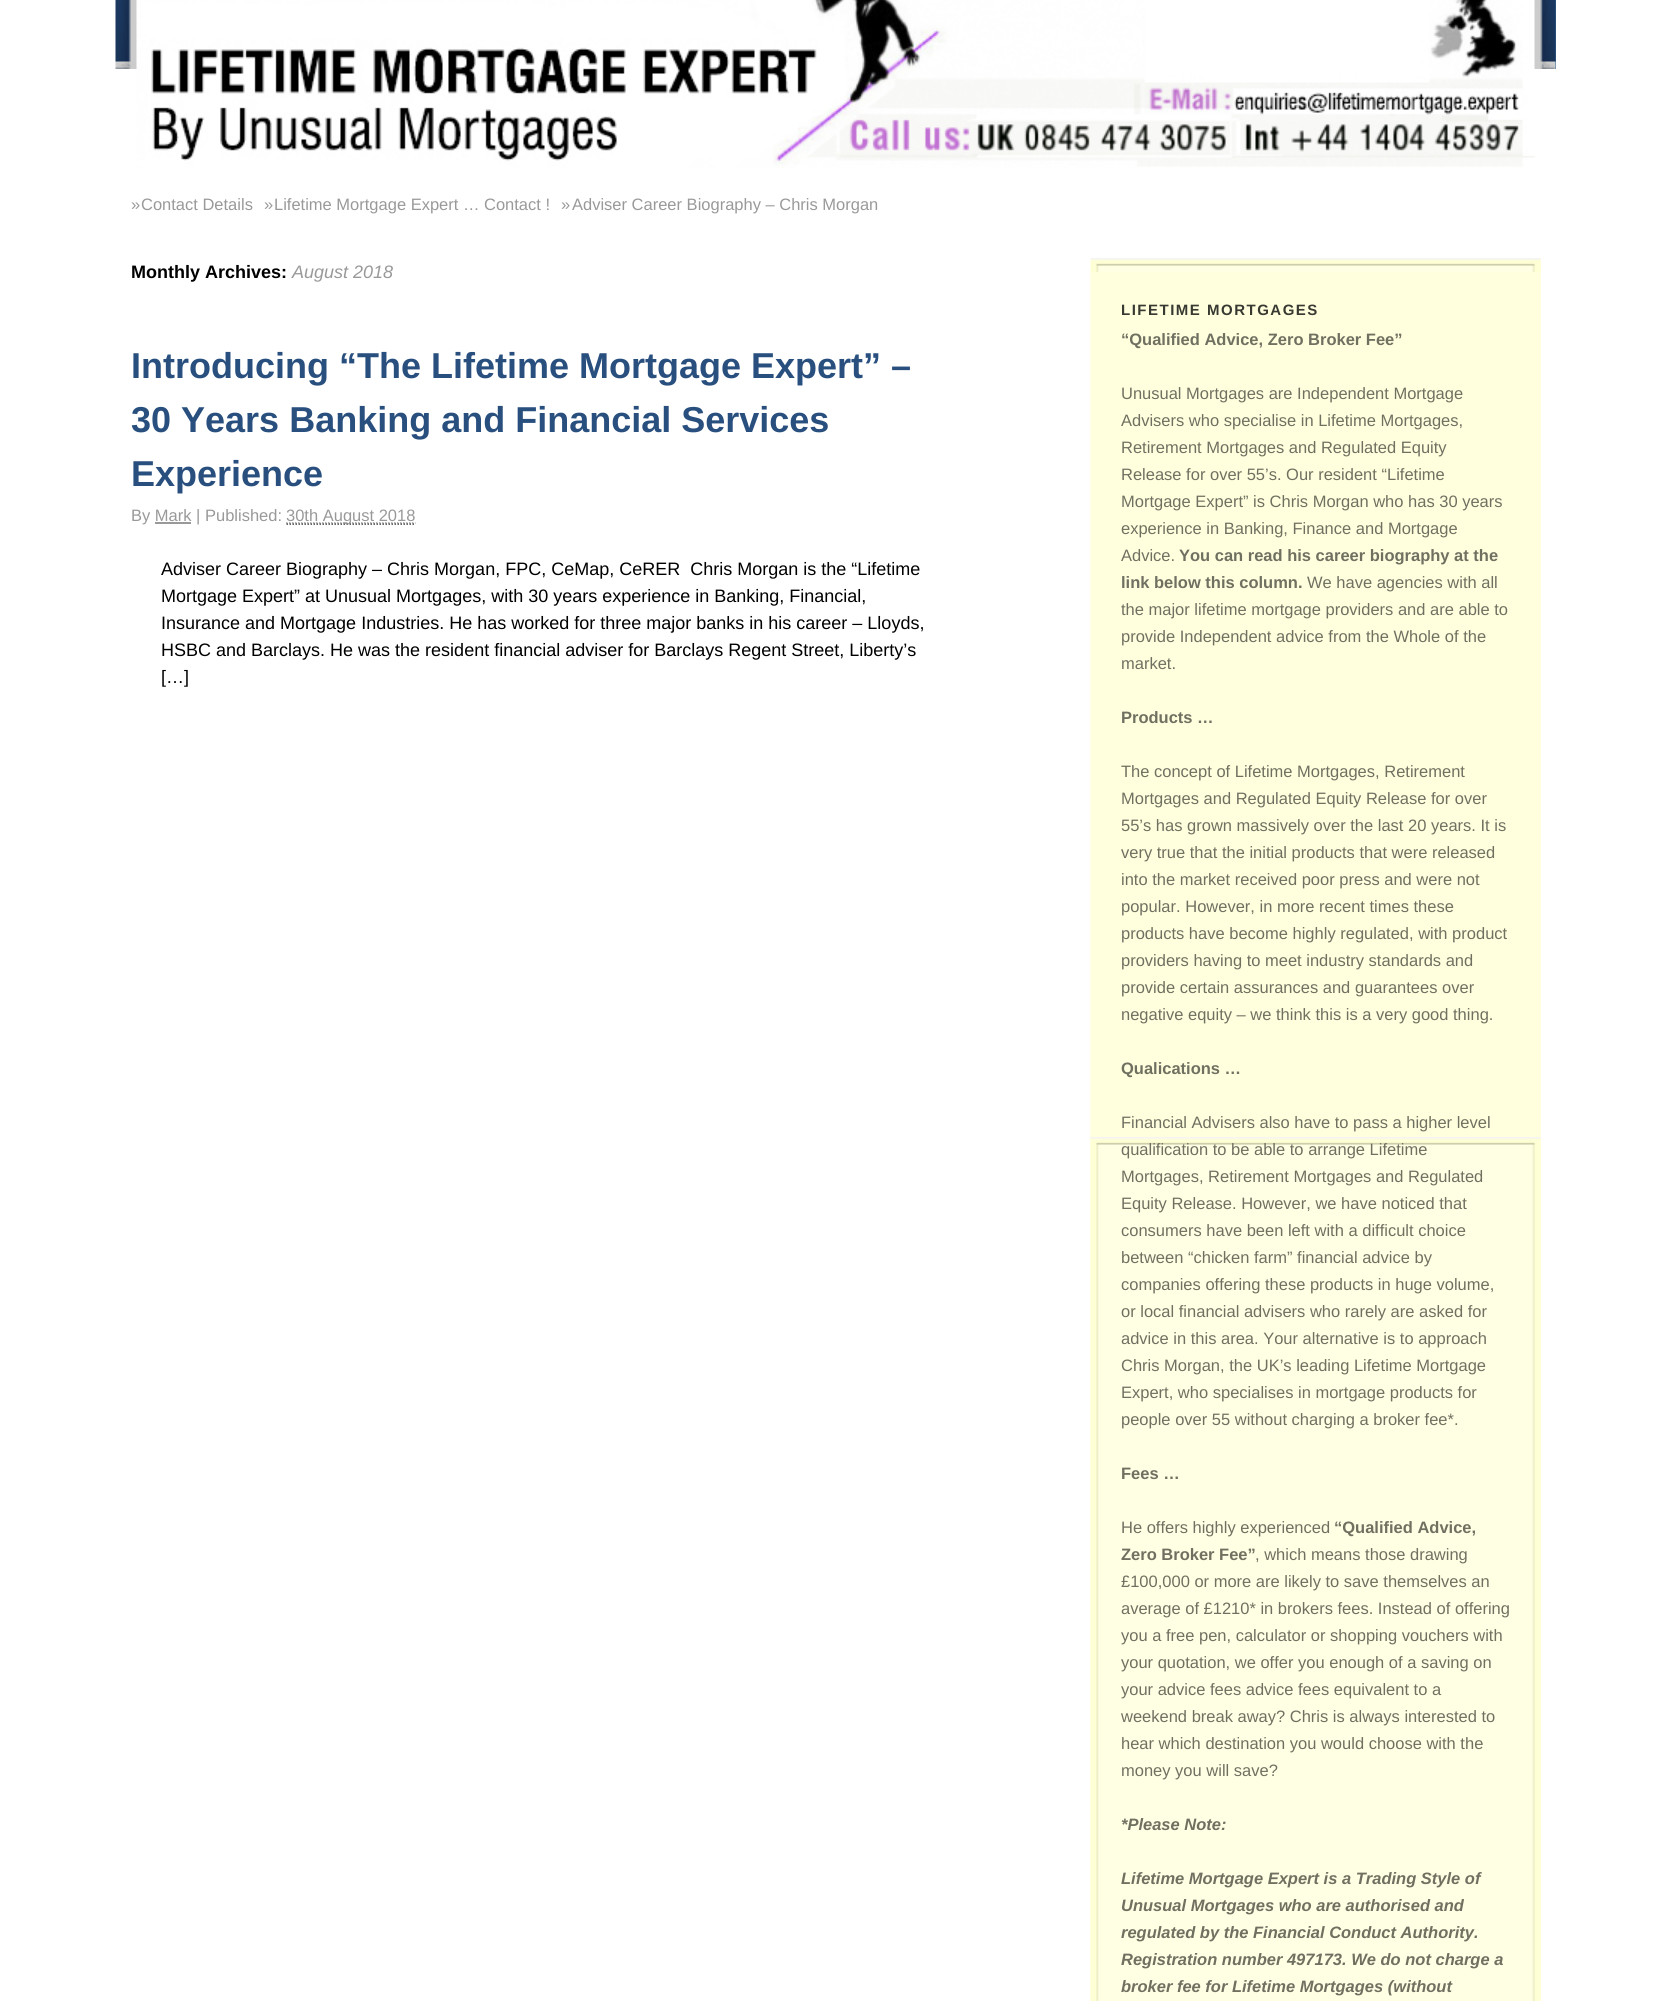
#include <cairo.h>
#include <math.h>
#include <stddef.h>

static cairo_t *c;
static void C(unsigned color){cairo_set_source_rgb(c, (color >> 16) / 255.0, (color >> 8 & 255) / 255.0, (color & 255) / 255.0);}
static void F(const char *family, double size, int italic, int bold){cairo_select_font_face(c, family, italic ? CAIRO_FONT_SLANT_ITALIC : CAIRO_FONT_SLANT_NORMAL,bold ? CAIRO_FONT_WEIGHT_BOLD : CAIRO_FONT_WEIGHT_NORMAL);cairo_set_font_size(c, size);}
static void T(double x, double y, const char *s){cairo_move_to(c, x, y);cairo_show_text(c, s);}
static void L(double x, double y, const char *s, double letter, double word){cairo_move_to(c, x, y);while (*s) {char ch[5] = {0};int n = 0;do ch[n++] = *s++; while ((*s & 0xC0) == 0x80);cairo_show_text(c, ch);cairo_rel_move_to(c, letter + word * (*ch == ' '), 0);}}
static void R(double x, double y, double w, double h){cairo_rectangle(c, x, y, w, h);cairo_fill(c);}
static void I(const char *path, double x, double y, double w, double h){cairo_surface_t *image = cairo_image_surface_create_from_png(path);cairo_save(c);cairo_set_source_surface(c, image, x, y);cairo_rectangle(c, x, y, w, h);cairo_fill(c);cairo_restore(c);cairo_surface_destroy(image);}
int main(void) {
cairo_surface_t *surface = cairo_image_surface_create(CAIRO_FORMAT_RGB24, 1670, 2001);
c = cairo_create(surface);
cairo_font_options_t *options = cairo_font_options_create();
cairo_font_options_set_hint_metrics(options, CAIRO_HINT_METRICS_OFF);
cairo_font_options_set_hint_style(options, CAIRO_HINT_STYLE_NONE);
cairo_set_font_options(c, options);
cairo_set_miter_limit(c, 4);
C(0xffffff);
cairo_paint(c);
C(0x336598);
R(1555,0,1,69);
I("1.png",115,0,1441,69);
I("2.png",136,0,1399,168);
F("Liberation Sans",16.5,0,0);
C(0x999999);
T(131,210,"»");
T(141,210,"Contact Details");
T(264,210,"»");
T(274,210,"Lifetime Mortgage Expert … Contact !");
T(561,210,"»");
T(572,210,"Adviser Career Biography – Chris Morgan");
F("Liberation Sans",18,0,1);
C(0x000000);
T(131,278,"Monthly Archives:");
F("Liberation Sans",18,1,0);
C(0x999999);
T(292,278,"August 2018");
F("Liberation Sans",36,0,1);
C(0x284f7e);
T(131,378,"Introducing “The Lifetime Mortgage Expert” –");
T(131,432,"30 Years Banking and Financial Services");
T(131,486,"Experience");
F("Liberation Sans",16.5,0,0);
C(0x999999);
T(131,521,"By Mark | Published:");
cairo_new_path(c);
cairo_move_to(c,286.5,524);
cairo_line_to(c,415.5,524);
C(0x333333);
cairo_set_line_width(c,1.5);
cairo_set_dash(c,(double[]){1.5,1.5},2,0);
cairo_stroke(c);
cairo_new_path(c);
cairo_move_to(c,286,523);
cairo_line_to(c,415.5,523);
C(0x999999);
cairo_stroke(c);
T(286,521,"30th August 2018");
R(155,522,36,2);
F("Liberation Sans",18,0,0);
C(0x000000);
T(161,575,"Adviser Career Biography – Chris Morgan, FPC, CeMap, CeRER  Chris Morgan is the “Lifetime");
T(161,602,"Mortgage Expert” at Unusual Mortgages, with 30 years experience in Banking, Financial,");
T(161,629,"Insurance and Mortgage Industries. He has worked for three major banks in his career – Lloyds,");
T(161,656,"HSBC and Barclays. He was the resident financial adviser for Barclays Regent Street, Liberty’s");
T(161,683,"[…]");
C(0xffffde);
R(1540,258,1,14);
I("3.png",1090,258,451,1743);
R(1091,272,450,1729);
I("4.png",1090,1137,451,864);
F("Liberation Sans",15,0,1);
C(0x383a32);
L(1121,315,"LIFETIME MORTGAGES",1.5,0);
F("Liberation Sans",16.5,0,1);
C(0x707061);
T(1121,345,"“Qualified Advice, Zero Broker Fee”");
F("Liberation Sans",16.5,0,0);
T(1121,399,"Unusual Mortgages are Independent Mortgage");
T(1121,426,"Advisers who specialise in Lifetime Mortgages,");
T(1121,453,"Retirement Mortgages and Regulated Equity");
T(1121,480,"Release for over 55’s. Our resident “Lifetime");
T(1121,507,"Mortgage Expert” is Chris Morgan who has 30 years");
T(1121,534,"experience in Banking, Finance and Mortgage");
T(1121,561,"Advice.");
F("Liberation Sans",16.5,0,1);
T(1179,561,"You can read his career biography at the");
T(1121,588,"link below this column.");
F("Liberation Sans",16.5,0,0);
T(1307,588,"We have agencies with all");
T(1121,615,"the major lifetime mortgage providers and are able to");
T(1121,642,"provide Independent advice from the Whole of the");
T(1121,669,"market.");
F("Liberation Sans",16.5,0,1);
T(1121,723,"Products …");
F("Liberation Sans",16.5,0,0);
T(1121,777,"The concept of Lifetime Mortgages, Retirement");
T(1121,804,"Mortgages and Regulated Equity Release for over");
T(1121,831,"55’s has grown massively over the last 20 years. It is");
T(1121,858,"very true that the initial products that were released");
T(1121,885,"into the market received poor press and were not");
T(1121,912,"popular. However, in more recent times these");
T(1121,939,"products have become highly regulated, with product");
T(1121,966,"providers having to meet industry standards and");
T(1121,993,"provide certain assurances and guarantees over");
T(1121,1020,"negative equity – we think this is a very good thing.");
F("Liberation Sans",16.5,0,1);
T(1121,1074,"Qualications …");
F("Liberation Sans",16.5,0,0);
T(1121,1128,"Financial Advisers also have to pass a higher level");
T(1121,1155,"qualification to be able to arrange Lifetime");
T(1121,1182,"Mortgages, Retirement Mortgages and Regulated");
T(1121,1209,"Equity Release. However, we have noticed that");
T(1121,1236,"consumers have been left with a difficult choice");
T(1121,1263,"between “chicken farm” financial advice by");
T(1121,1290,"companies offering these products in huge volume,");
T(1121,1317,"or local financial advisers who rarely are asked for");
T(1121,1344,"advice in this area. Your alternative is to approach");
T(1121,1371,"Chris Morgan, the UK’s leading Lifetime Mortgage");
T(1121,1398,"Expert, who specialises in mortgage products for");
T(1121,1425,"people over 55 without charging a broker fee*.");
F("Liberation Sans",16.5,0,1);
T(1121,1479,"Fees …");
F("Liberation Sans",16.5,0,0);
T(1121,1533,"He offers highly experienced");
F("Liberation Sans",16.5,0,1);
T(1334,1533,"“Qualified Advice,");
T(1121,1560,"Zero Broker Fee”");
F("Liberation Sans",16.5,0,0);
T(1255,1560,", which means those drawing");
T(1121,1587,"£100,000 or more are likely to save themselves an");
T(1121,1614,"average of £1210* in brokers fees. Instead of offering");
T(1121,1641,"you a free pen, calculator or shopping vouchers with");
T(1121,1668,"your quotation, we offer you enough of a saving on");
T(1121,1695,"your advice fees advice fees equivalent to a");
T(1121,1722,"weekend break away? Chris is always interested to");
T(1121,1749,"hear which destination you would choose with the");
T(1121,1776,"money you will save?");
F("Liberation Sans",16.5,1,1);
T(1121,1830,"*Please Note:");
T(1121,1884,"Lifetime Mortgage Expert is a Trading Style of");
T(1121,1911,"Unusual Mortgages who are authorised and");
T(1121,1938,"regulated by the Financial Conduct Authority.");
T(1121,1965,"Registration number 497173. We do not charge a");
T(1121,1992,"broker fee for Lifetime Mortgages (without");
cairo_surface_write_to_png(surface, "o.png");
cairo_font_options_destroy(options);
cairo_destroy(c);
cairo_surface_destroy(surface);
return 0;
}
